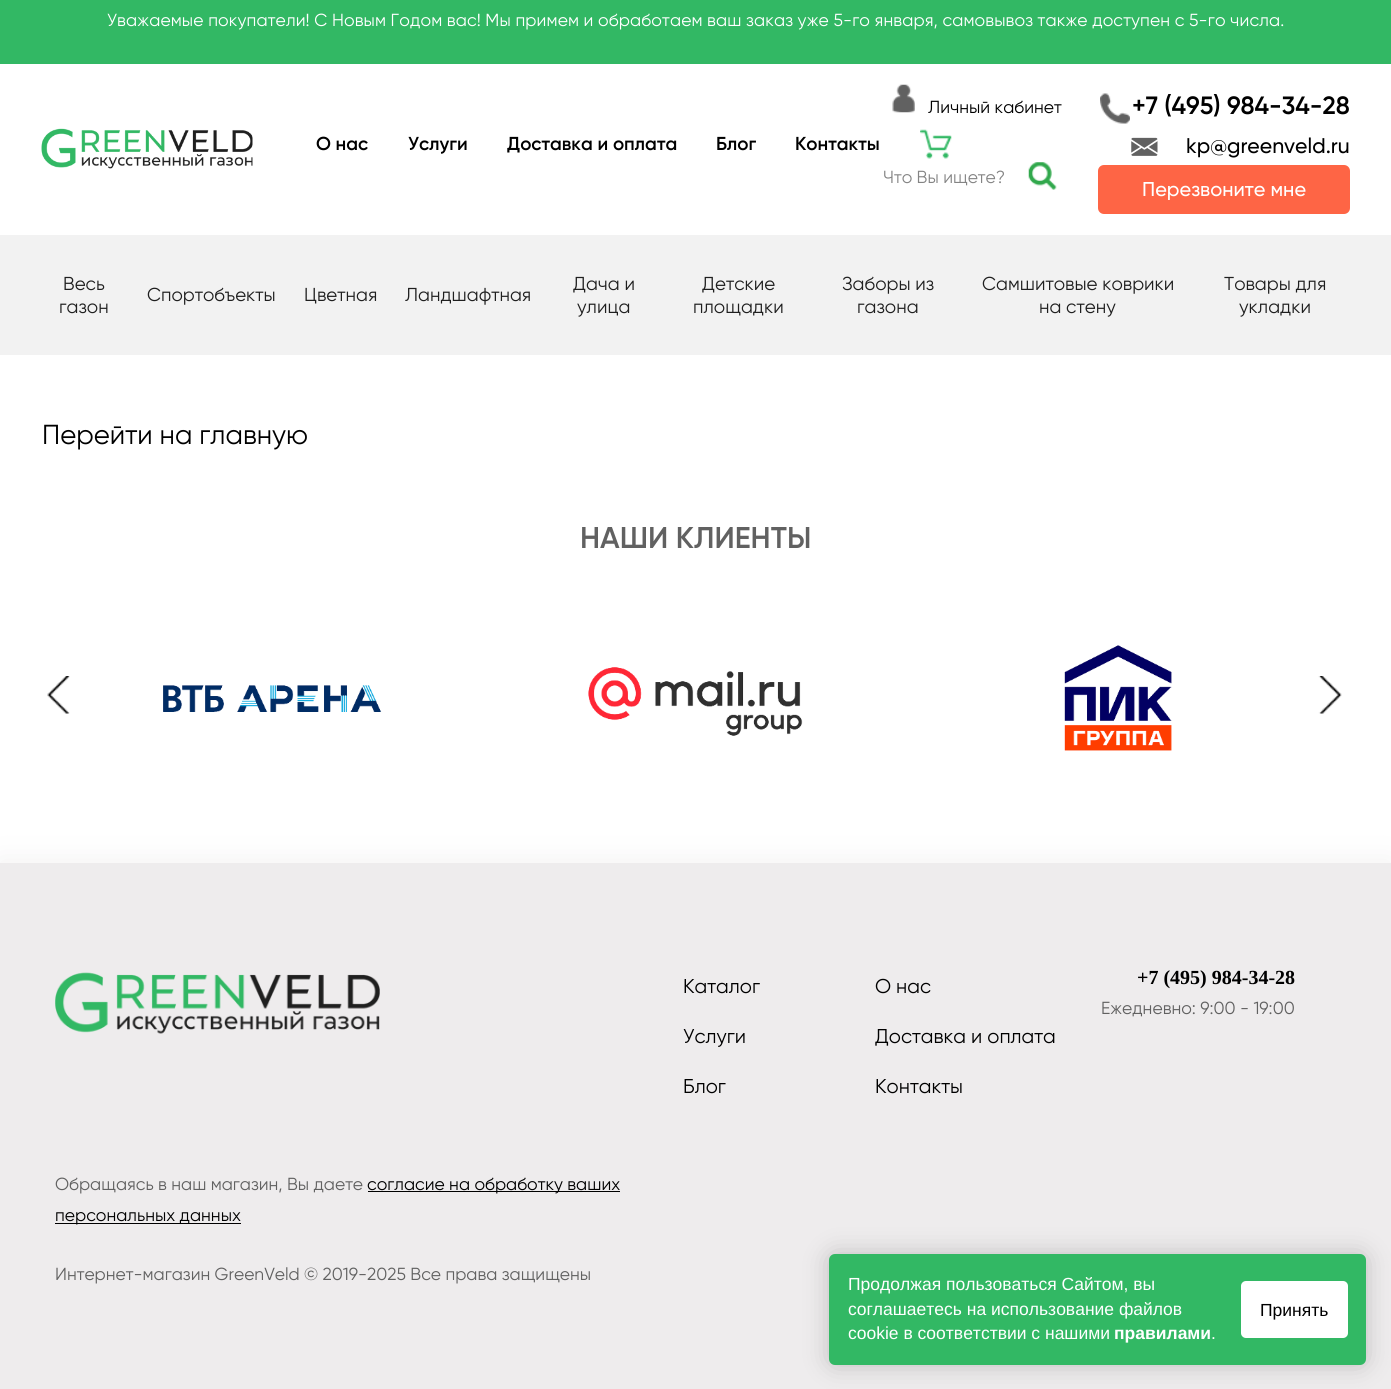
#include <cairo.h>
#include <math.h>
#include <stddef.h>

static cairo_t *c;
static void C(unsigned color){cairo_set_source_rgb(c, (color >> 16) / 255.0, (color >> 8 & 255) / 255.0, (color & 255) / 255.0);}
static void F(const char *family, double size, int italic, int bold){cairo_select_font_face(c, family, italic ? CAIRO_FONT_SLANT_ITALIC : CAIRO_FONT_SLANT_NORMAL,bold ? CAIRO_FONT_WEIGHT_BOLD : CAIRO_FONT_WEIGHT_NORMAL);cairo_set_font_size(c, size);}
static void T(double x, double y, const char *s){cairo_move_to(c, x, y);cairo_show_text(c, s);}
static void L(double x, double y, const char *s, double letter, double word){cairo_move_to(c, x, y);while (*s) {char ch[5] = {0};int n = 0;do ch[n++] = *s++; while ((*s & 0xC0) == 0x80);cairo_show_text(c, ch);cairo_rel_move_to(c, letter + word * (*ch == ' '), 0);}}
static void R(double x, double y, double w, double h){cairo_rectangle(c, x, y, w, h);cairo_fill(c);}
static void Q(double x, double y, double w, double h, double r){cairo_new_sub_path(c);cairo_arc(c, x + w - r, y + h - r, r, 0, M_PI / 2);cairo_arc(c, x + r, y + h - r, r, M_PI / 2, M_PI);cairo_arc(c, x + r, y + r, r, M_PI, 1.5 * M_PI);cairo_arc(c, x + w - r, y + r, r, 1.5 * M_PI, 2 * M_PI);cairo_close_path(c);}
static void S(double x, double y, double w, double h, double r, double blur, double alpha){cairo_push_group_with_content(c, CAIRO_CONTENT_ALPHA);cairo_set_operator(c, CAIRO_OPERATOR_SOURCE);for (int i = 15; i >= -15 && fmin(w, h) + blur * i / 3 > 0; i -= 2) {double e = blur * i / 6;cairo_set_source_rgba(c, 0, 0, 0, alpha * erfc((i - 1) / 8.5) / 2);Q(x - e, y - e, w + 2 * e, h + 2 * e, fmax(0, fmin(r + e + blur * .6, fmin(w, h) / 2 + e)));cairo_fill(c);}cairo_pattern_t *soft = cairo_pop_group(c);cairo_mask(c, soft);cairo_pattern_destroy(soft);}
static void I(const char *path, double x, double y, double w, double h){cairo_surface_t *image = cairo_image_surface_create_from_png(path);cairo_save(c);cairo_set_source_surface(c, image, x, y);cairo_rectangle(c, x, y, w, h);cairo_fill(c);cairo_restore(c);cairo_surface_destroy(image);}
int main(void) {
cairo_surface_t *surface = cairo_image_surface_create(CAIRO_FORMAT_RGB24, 1391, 1389);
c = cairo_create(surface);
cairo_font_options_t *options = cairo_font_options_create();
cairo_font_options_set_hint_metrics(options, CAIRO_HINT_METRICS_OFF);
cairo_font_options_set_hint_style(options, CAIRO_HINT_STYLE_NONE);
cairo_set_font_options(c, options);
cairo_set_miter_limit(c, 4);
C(0xffffff);
cairo_paint(c);
C(0x32b864);
R(0,0,1391,64);
F("Gilroy",17.5,0,0);
C(0xffffff);
L(107,26,"Уважаемые покупатели! С Новым Годом вас! Мы примем и обработаем ваш заказ уже 5-го января, самовывоз также доступен с 5-го числа.",.12,0);
I("1.png",41,128,212,41);
F("Gilroy SemiBold",18.75,0,0);
C(0x000000);
T(316,150,"О нас");
T(408,150,"Услуги");
T(507,150,"Доставка и оплата");
T(716,150,"Блог");
T(795,150,"Контакты");
I("2.png",920,129,32,30);
I("3.png",892,84,23,29);
F("Gilroy",17.5,0,0);
T(928,113,"Личный кабинет");
I("4.png",1100,93,30,31);
F("Gilroy SemiBold",25,0,0);
T(1132,114,"+7 (495) 984-34-28");
I("5.png",1131,137,27,19);
F("Gilroy Medium",21.25,0,0);
T(1186,153,"kp@greenveld.ru");
F("Gilroy",17.5,0,0);
C(0x848484);
T(883,183,"Что Вы ищете?");
I("6.png",1028,162,29,28);
C(0xfe6545);
Q(1098,165,252,49,6);
cairo_fill(c);
F("Gilroy Medium",20,0,0);
C(0xffffff);
T(1142,196,"Перезвоните мне");
C(0xf2f2f2);
R(0,235,1391,120);
F("Gilroy",18.75,0,0);
C(0x1f1f1f);
T(63,290,"Весь");
T(59,313,"газон");
T(147,301,"Спортобъекты");
T(304,301,"Цветная");
T(405,301,"Ландшафтная");
T(573,290,"Дача и");
T(577,313,"улица");
T(702,290,"Детские");
T(693,313,"площадки");
T(842,290,"Заборы из");
T(857,313,"газона");
T(982,290,"Самшитовые коврики");
T(1039,313,"на стену");
T(1224,290,"Товары для");
T(1239,313,"укладки");
F("Gilroy",27.5,0,0);
C(0x000000);
T(42,444,"Перейти на главную");
F("Gilroy SemiBold",30,0,0);
C(0x616161);
T(580,548,"НАШИ КЛИЕНТЫ");
I("7.png",163,685,219,27);
I("8.png",588,667,215,69);
I("9.png",1064,645,108,106);
I("10.png",47,676,23,38);
I("11.png",1318,676,24,38);
C(0xeeeced);
S(0,861,1391,528,0,14,.75);
C(0xeeeced);
R(0,863,1391,526);
F("Gilroy",20,0,0);
C(0x000000);
T(683,993,"Каталог");
T(875,993,"О нас");
T(683,1043,"Услуги");
T(875,1043,"Доставка и оплата");
T(683,1093,"Блог");
T(875,1093,"Контакты");
F("Liberation Serif",20,0,1);
T(1137,984,"+7 (495) 984-34-28");
F("Gilroy",17.5,0,0);
C(0x616161);
T(1101,1014,"Ежедневно: 9:00 - 19:00");
I("12.png",55,972,325,62);
T(55,1190,"Обращаясь в наш магазин, Вы даете");
C(0x000000);
R(368,1191,252,1);
T(367,1190,"согласие на обработку ваших");
R(55,1223,186,1);
T(55,1221,"персональных данных");
C(0x616161);
T(55,1280,"Интернет-магазин GreenVeld © 2019-2025 Все права защищены");
C(0x000000);
S(829,1254,537,111,6,12.5,.2);
C(0x32b864);
Q(829,1254,537,111,6);
cairo_fill(c);
F("Liberation Sans",17.5,0,0);
C(0xffffff);
T(848,1290,"Продолжая пользоваться Сайтом, вы");
T(848,1315,"соглашаетесь на использование файлов");
T(848,1339,"cookie в соответствии с нашими");
F("Liberation Sans",17.5,0,1);
T(1114,1339,"правилами");
F("Liberation Sans",17.5,0,0);
T(1211,1339,".");
Q(1241,1281,107,57,5);
cairo_fill(c);
C(0x000000);
T(1260,1316,"Принять");
cairo_surface_write_to_png(surface, "o.png");
cairo_font_options_destroy(options);
cairo_destroy(c);
cairo_surface_destroy(surface);
return 0;
}
